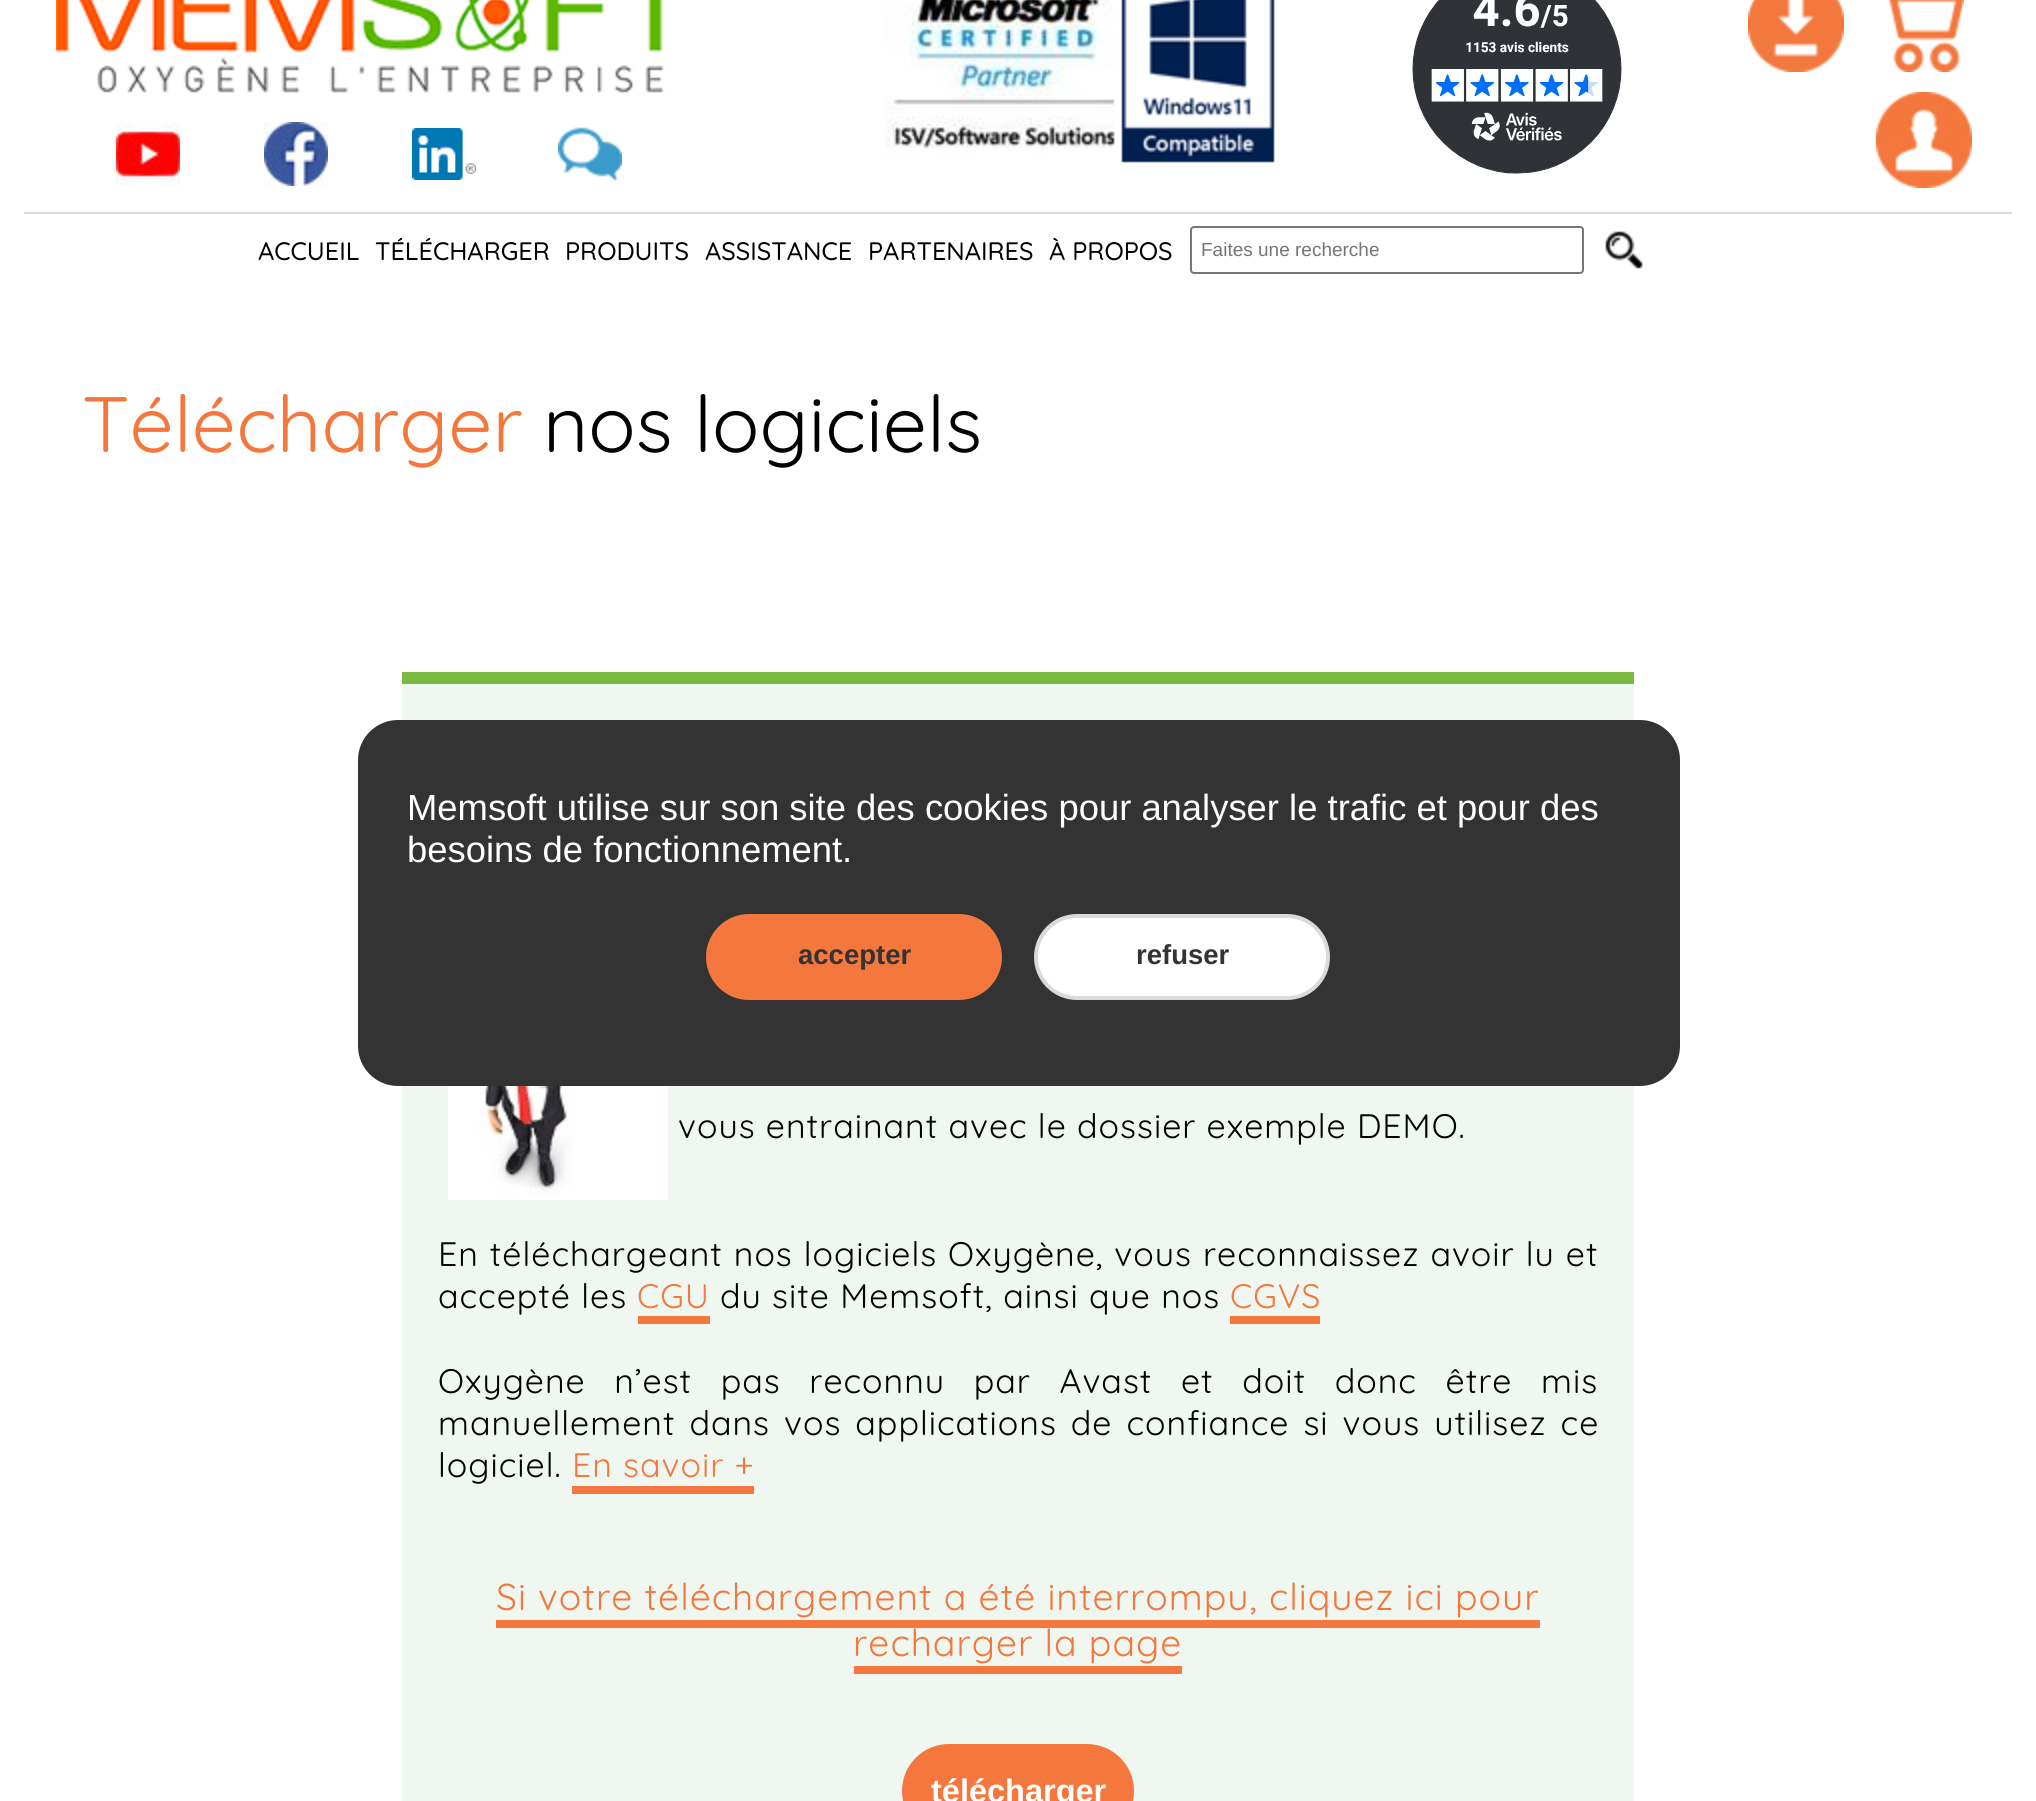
#include <cairo.h>
#include <math.h>
#include <stddef.h>

static cairo_t *c;
static void C(unsigned color){cairo_set_source_rgb(c, (color >> 16) / 255.0, (color >> 8 & 255) / 255.0, (color & 255) / 255.0);}
static void F(const char *family, double size, int italic, int bold){cairo_select_font_face(c, family, italic ? CAIRO_FONT_SLANT_ITALIC : CAIRO_FONT_SLANT_NORMAL,bold ? CAIRO_FONT_WEIGHT_BOLD : CAIRO_FONT_WEIGHT_NORMAL);cairo_set_font_size(c, size);}
static void T(double x, double y, const char *s){cairo_move_to(c, x, y);cairo_show_text(c, s);}
static void L(double x, double y, const char *s, double letter, double word){cairo_move_to(c, x, y);while (*s) {char ch[5] = {0};int n = 0;do ch[n++] = *s++; while ((*s & 0xC0) == 0x80);cairo_show_text(c, ch);cairo_rel_move_to(c, letter + word * (*ch == ' '), 0);}}
static void R(double x, double y, double w, double h){cairo_rectangle(c, x, y, w, h);cairo_fill(c);}
static void Q(double x, double y, double w, double h, double r){cairo_new_sub_path(c);cairo_arc(c, x + w - r, y + h - r, r, 0, M_PI / 2);cairo_arc(c, x + r, y + h - r, r, M_PI / 2, M_PI);cairo_arc(c, x + r, y + r, r, M_PI, 1.5 * M_PI);cairo_arc(c, x + w - r, y + r, r, 1.5 * M_PI, 2 * M_PI);cairo_close_path(c);}
static void I(const char *path, double x, double y, double w, double h){cairo_surface_t *image = cairo_image_surface_create_from_png(path);cairo_save(c);cairo_set_source_surface(c, image, x, y);cairo_rectangle(c, x, y, w, h);cairo_fill(c);cairo_restore(c);cairo_surface_destroy(image);}
int main(void) {
cairo_surface_t *surface = cairo_image_surface_create(CAIRO_FORMAT_RGB24, 2036, 1801);
c = cairo_create(surface);
cairo_font_options_t *options = cairo_font_options_create();
cairo_font_options_set_hint_metrics(options, CAIRO_HINT_METRICS_OFF);
cairo_font_options_set_hint_style(options, CAIRO_HINT_STYLE_NONE);
cairo_set_font_options(c, options);
cairo_set_miter_limit(c, 4);
C(0xffffff);
cairo_paint(c);
I("1.png",56,0,609,93);
I("2.png",116,122,64,64);
I("3.png",264,122,64,64);
I("4.png",412,128,64,52);
I("5.png",558,127,64,54);
I("6.png",884,0,391,163);
I("7.png",1412,0,210,174);
I("8.png",1748,0,96,72);
I("9.png",1888,0,76,72);
I("10.png",1876,92,96,96);
C(0xdadada);
R(24,212,1988,2);
F("Quicksand Medium",25.25,0,0);
C(0x000000);
T(258,260,"ACCUEIL");
T(375,260,"TÉLÉCHARGER");
T(565,260,"PRODUITS");
T(705,260,"ASSISTANCE");
T(868,260,"PARTENAIRES");
T(1049,260,"À PROPOS");
Q(1191,227,392,46,3);
C(0x767676);
cairo_stroke(c);
F("Liberation Sans",19,0,0);
C(0x757575);
T(1201,256,"Faites une recherche");
I("11.png",1605,231,38,38);
F("Quicksand",78.5,0,0);
C(0xf4783d);
T(82,452,"Télécharger");
C(0x000000);
T(543,452,"nos logiciels");
C(0xeff7f0);
R(402,684,1232,1117);
C(0x7aba43);
R(402,672,1232,12);
I("12.png",448,1086,220,114);
F("Quicksand",33.9,0,0);
C(0x000000);
L(678,1138,"vous entrainant avec le dossier exemple DEMO.",1,0);
L(438,1266,"En téléchargeant nos logiciels Oxygène, vous reconnaissez avoir lu et",1,.75);
L(438,1308,"accepté les",1,0);
C(0xf4783d);
L(637,1308,"CGU",1,0);
R(638,1316,72,8);
C(0x000000);
L(720,1308,"du site Memsoft, ainsi que nos",1,0);
C(0xf4783d);
L(1230,1308,"CGVS",1,0);
R(1230,1316,90,8);
C(0x000000);
L(438,1393,"Oxygène n’est pas reconnu par Avast et doit donc être mis",1,18.4);
L(438,1435,"manuellement dans vos applications de confiance si vous utilisez ce",1,3.75);
L(438,1477,"logiciel.",1,0);
C(0xf4783d);
L(572,1477,"En savoir +",1,0);
R(572,1486,182,8);
F("Quicksand",37.25,0,0);
L(496,1610,"Si votre téléchargement a été interrompu, cliquez ici pour",1,0);
L(853,1656,"recharger la page",1,0);
R(496,1620,1044,8);
R(854,1666,328,8);
Q(904,1746,228,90,45);
cairo_fill_preserve(c);
cairo_set_line_width(c,4);
cairo_stroke(c);
F("Liberation Sans",32.5,0,1);
C(0xffffff);
T(931,1802,"télécharger");
C(0x333333);
Q(358,720,1322,366,40);
cairo_fill(c);
F("Liberation Sans",36.4,0,0);
C(0xffffff);
T(407,820,"Memsoft utilise sur son site des cookies pour analyser le trafic et pour des");
T(407,862,"besoins de fonctionnement.");
C(0xf4783d);
Q(708,916,292,82,41);
cairo_fill_preserve(c);
cairo_stroke(c);
F("Liberation Sans",27.5,0,1);
C(0x333333);
T(798,964,"accepter");
C(0xffffff);
Q(1036,916,292,82,41);
cairo_fill_preserve(c);
C(0xdadada);
cairo_stroke(c);
C(0x333333);
T(1136,964,"refuser");
cairo_surface_write_to_png(surface, "o.png");
cairo_font_options_destroy(options);
cairo_destroy(c);
cairo_surface_destroy(surface);
return 0;
}
